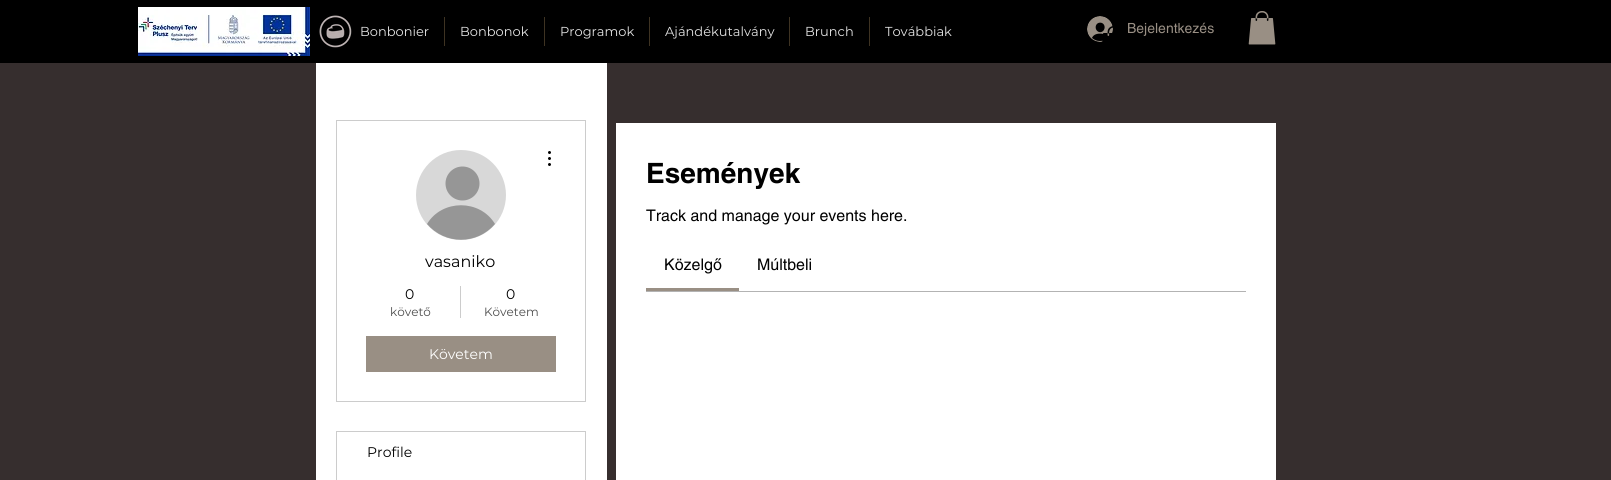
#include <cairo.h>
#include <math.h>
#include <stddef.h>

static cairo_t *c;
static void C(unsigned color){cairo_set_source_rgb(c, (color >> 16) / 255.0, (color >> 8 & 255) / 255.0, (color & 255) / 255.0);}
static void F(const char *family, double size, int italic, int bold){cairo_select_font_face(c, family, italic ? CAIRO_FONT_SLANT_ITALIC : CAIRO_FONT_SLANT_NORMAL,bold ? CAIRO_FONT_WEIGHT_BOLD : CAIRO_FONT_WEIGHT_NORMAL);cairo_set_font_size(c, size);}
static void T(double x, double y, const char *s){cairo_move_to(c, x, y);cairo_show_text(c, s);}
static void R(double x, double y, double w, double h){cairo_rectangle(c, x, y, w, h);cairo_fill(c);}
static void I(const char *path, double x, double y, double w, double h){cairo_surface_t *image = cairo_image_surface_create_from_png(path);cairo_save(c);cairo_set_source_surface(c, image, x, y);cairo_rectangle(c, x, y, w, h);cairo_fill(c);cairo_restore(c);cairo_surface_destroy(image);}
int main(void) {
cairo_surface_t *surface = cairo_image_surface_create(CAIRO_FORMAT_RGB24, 1611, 480);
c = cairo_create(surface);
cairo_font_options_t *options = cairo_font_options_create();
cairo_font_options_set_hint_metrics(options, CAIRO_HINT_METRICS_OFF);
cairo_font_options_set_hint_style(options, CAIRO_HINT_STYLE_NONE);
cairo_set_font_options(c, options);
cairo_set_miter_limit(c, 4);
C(0x362e2e);
cairo_paint(c);
C(0x000000);
R(0,0,1611,63);
I("1.png",138,7,172,49);
I("2.png",319,15,33,33);
F("Montserrat",13,0,0);
C(0xe5e5e5);
T(360,36,"Bonbonier");
C(0x3e3322);
R(444,17,1,29);
C(0xe5e5e5);
T(460,36,"Bonbonok");
C(0x3e3322);
R(544,17,1,29);
C(0xe5e5e5);
T(560,36,"Programok");
C(0x3e3322);
R(649,17,1,29);
C(0xe5e5e5);
T(665,36,"Ajándékutalvány");
C(0x3e3322);
R(789,17,1,29);
C(0xe5e5e5);
T(805,36,"Brunch");
C(0x3e3322);
R(869,17,1,29);
C(0xe5e5e5);
T(885,36,"Továbbiak");
I("4.png",1087,16,26,26);
I("3.png",1102,26,11,16);
F("helvetica",14,0,0);
C(0x998f84);
T(1127,33,"Bejelentkezés");
I("5.png",1248,11,28,34);
C(0xffffff);
R(616,123,660,357);
F("helvetica",28,0,1);
C(0x000000);
T(646,183,"Események");
F("helvetica",16,0,0);
T(646,221,"Track and manage your events here.");
C(0x998f84);
R(646,288,93,3);
C(0x000000);
T(664,270,"Közelgő");
T(757,270,"Múltbeli");
C(0xb3b3b3);
R(646,291,600,1);
C(0xffffff);
R(316,63,291,417);
cairo_rectangle(c,336.5,120.5,249,281);
C(0xcccccc);
cairo_set_line_width(c,1);
cairo_stroke(c);
C(0xd8d8d8);
cairo_arc(c,461,195,45,0,2 * M_PI);
cairo_fill(c);
C(0x969696);
cairo_arc(c,462.5,183.5,17,0,2 * M_PI);
cairo_fill(c);
cairo_new_path(c);
cairo_move_to(c,495,224);
cairo_curve_to(c,477,245,445,245,427,224);
cairo_curve_to(c,442,199,480,199,495,224);
cairo_close_path(c);
cairo_fill(c);
I("6.png",548,151,3,15);
F("Montserrat",16,0,0);
C(0x000000);
T(425,267,"vasaniko");
F("Montserrat",14,0,0);
T(405,299,"0");
F("Montserrat",12,0,0);
C(0x4d4d4d);
T(390,316,"követő");
C(0xcccccc);
R(460,286,1,32);
F("Montserrat",14,0,0);
C(0x000000);
T(506,299,"0");
F("Montserrat",12,0,0);
C(0x4d4d4d);
T(484,316,"Követem");
C(0x998f84);
R(366,336,190,36);
F("Montserrat",14,0,0);
C(0xffffff);
T(429,359,"Követem");
cairo_rectangle(c,336.5,431.5,249,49);
C(0xcccccc);
cairo_stroke(c);
C(0x000000);
T(367,457,"Profile");
cairo_surface_write_to_png(surface, "o.png");
cairo_font_options_destroy(options);
cairo_destroy(c);
cairo_surface_destroy(surface);
return 0;
}
